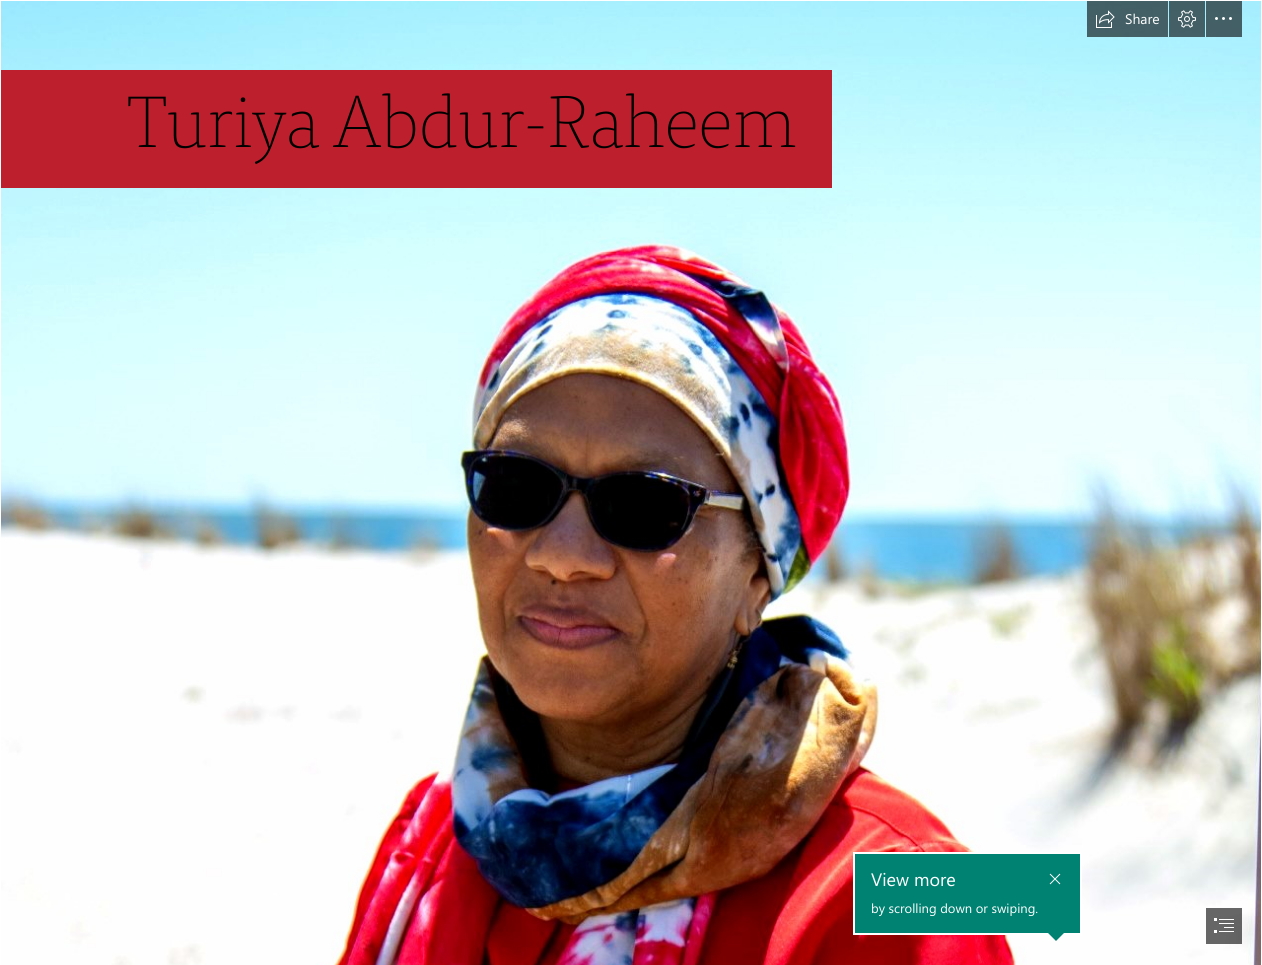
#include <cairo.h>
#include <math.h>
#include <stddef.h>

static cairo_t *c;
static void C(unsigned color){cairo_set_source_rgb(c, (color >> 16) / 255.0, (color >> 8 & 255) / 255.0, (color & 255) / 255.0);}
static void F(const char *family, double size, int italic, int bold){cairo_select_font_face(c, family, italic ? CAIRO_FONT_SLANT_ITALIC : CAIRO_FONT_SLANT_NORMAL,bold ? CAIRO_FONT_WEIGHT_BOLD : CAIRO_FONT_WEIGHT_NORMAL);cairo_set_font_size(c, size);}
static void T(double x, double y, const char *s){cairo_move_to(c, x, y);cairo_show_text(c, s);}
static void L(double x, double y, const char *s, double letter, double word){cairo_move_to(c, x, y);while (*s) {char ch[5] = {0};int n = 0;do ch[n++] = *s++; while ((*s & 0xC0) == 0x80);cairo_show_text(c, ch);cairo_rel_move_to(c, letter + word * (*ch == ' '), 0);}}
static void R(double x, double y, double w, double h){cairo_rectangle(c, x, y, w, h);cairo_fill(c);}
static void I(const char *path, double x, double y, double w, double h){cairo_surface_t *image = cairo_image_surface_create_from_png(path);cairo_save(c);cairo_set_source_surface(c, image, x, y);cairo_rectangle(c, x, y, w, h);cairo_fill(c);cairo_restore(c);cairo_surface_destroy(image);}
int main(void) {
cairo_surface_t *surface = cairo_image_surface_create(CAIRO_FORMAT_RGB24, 1262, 965);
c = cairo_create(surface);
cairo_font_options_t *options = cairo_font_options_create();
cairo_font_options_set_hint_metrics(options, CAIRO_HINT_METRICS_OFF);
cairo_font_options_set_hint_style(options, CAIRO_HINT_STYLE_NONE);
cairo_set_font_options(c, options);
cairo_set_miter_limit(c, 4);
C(0xffffff);
cairo_paint(c);
I("4.png",1,1,1260,964);
cairo_set_source_rgba(c,0,0,0,0.6);
R(1087,1,81,36);
I("1.png",1096,10,19,18);
F("Segoe UI",14,0,0);
C(0xffffff);
T(1125,24,"Share");
cairo_set_source_rgba(c,0,0,0,0.6);
R(1169,1,36,36);
I("2.png",1178,10,18,18);
R(1206,1,36,36);
I("3.png",1215,17,17,3);
C(0xbd1f2d);
R(1,70,831,118);
F("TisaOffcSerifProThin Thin",74,0,0);
C(0x000000);
L(127,147,"Turiya Abdur-Raheem",-1.25,0);
C(0x008272);
cairo_rectangle(c,854,853,227,81);
cairo_fill_preserve(c);
C(0xffffff);
cairo_stroke(c);
F("Segoe UI",18,0,0);
T(871,886,"View more");
F("Segoe UI",13,0,0);
T(871,913,"by scrolling down or swiping.");
I("5.png",1049,873,12,12);
C(0x008272);
cairo_new_path(c);
cairo_move_to(c,1048,933);
cairo_line_to(c,1064,933);
cairo_line_to(c,1056,941);
cairo_close_path(c);
cairo_fill(c);
cairo_set_source_rgba(c,0,0,0,0.6);
R(1206,908,36,36);
I("6.png",1214,918,20,15);
cairo_surface_write_to_png(surface, "o.png");
cairo_font_options_destroy(options);
cairo_destroy(c);
cairo_surface_destroy(surface);
return 0;
}
